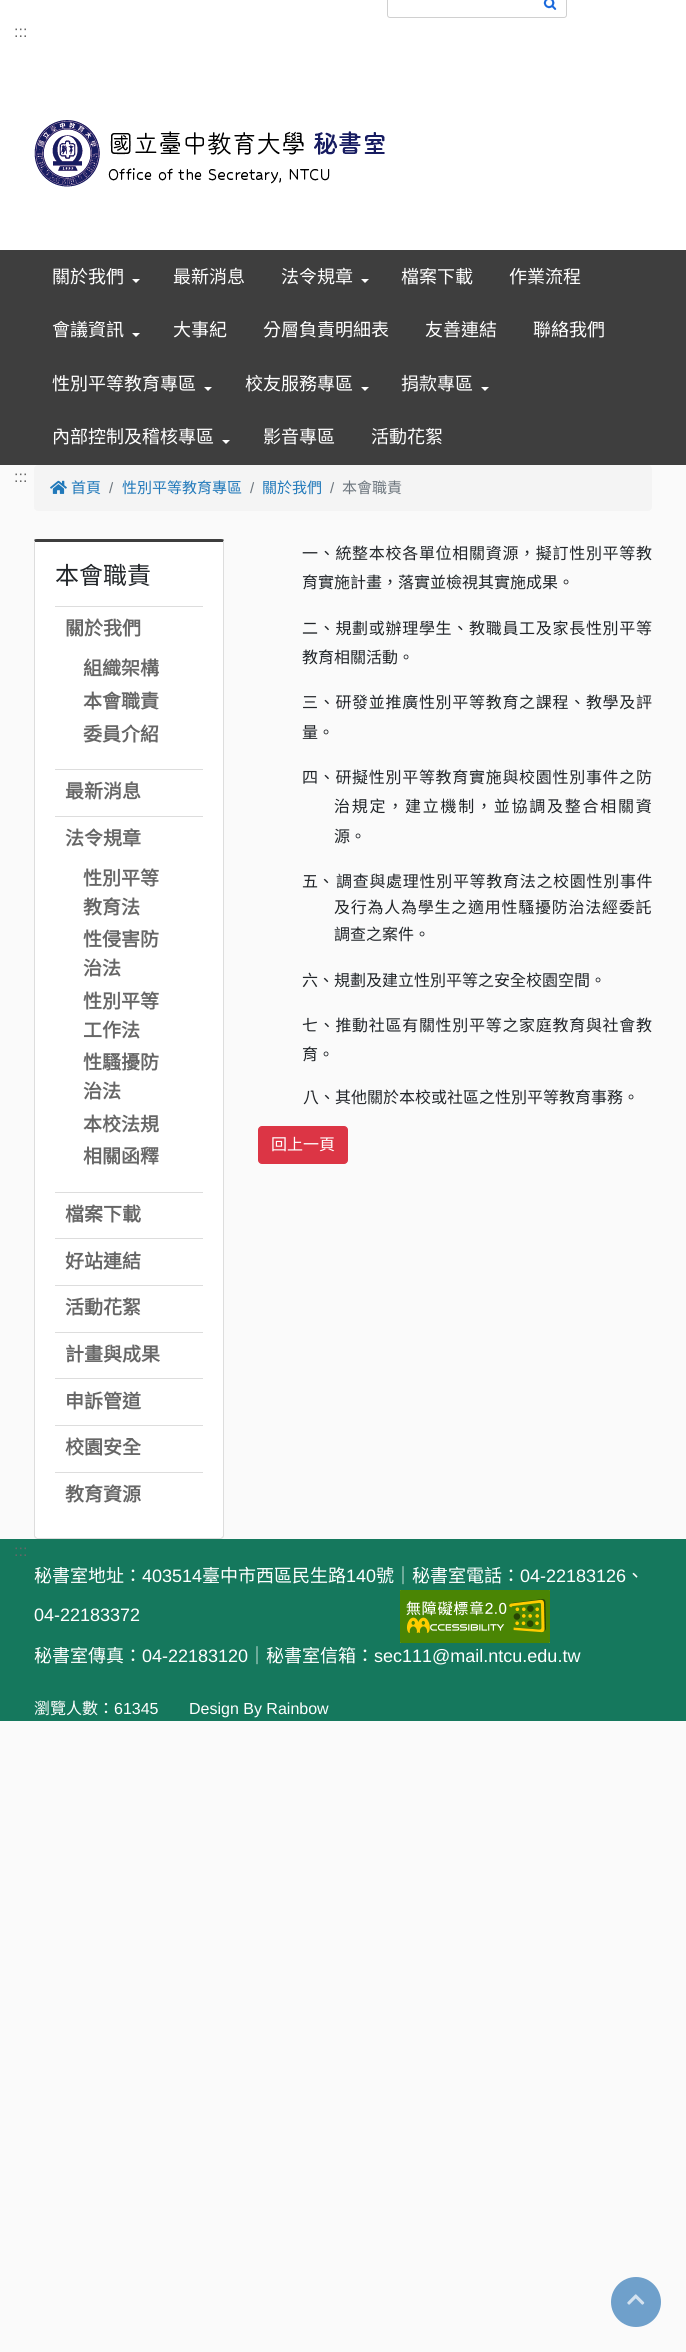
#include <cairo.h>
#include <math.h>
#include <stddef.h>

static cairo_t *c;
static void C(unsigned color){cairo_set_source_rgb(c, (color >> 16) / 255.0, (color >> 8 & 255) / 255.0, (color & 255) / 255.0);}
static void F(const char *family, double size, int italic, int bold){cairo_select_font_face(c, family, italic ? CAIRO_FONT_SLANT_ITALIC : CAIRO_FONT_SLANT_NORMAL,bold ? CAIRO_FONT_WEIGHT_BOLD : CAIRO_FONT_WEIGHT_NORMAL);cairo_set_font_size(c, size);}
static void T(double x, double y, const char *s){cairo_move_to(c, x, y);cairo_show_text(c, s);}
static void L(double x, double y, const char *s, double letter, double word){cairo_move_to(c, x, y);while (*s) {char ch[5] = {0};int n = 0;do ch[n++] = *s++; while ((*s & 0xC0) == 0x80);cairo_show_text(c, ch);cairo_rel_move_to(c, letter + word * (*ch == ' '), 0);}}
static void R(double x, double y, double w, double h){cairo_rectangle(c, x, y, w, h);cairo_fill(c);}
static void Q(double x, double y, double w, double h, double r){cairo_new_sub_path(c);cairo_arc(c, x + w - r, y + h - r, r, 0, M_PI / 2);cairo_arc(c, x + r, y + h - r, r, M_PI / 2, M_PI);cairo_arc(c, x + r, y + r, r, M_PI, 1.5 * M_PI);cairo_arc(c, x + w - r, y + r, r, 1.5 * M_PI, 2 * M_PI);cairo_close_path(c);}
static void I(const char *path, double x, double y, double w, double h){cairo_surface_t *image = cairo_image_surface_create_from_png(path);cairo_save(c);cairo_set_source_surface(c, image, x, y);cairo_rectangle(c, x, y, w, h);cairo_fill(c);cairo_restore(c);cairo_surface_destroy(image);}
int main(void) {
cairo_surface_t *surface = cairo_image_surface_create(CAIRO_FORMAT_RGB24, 686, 2352);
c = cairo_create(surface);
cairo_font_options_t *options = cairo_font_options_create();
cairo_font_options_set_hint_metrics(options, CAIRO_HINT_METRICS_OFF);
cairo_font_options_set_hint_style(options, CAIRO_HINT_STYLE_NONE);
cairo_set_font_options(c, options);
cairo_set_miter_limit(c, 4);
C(0xfafafa);
cairo_paint(c);
C(0xffffff);
R(0,0,686,250);
Q(387.5,-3.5,179,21,2.5);
C(0xd0d0d0);
cairo_set_line_width(c,1);
cairo_stroke(c);
I("1.png",543,0,14,10);
F("Liberation Sans",16,0,0);
C(0x666666);
T(14,37,":::");
I("2.png",34,120,351,67);
C(0x3e3e3e);
R(0,250,686,215);
F("Noto Sans CJK TC",18,0,0);
C(0xffffff);
T(52,283,"關於我們");
cairo_new_path(c);
cairo_move_to(c,132,279);
cairo_line_to(c,140,279);
cairo_line_to(c,136,283);
cairo_close_path(c);
cairo_fill(c);
T(173,283,"最新消息");
T(281,283,"法令規章");
cairo_new_path(c);
cairo_move_to(c,361,279);
cairo_line_to(c,369,279);
cairo_line_to(c,365,283);
cairo_close_path(c);
cairo_fill(c);
T(401,283,"檔案下載");
T(509,283,"作業流程");
T(52,336,"會議資訊");
cairo_new_path(c);
cairo_move_to(c,132,333);
cairo_line_to(c,140,333);
cairo_line_to(c,136,337);
cairo_close_path(c);
cairo_fill(c);
T(173,336,"大事紀");
T(263,336,"分層負責明細表");
T(425,336,"友善連結");
T(533,336,"聯絡我們");
T(52,390,"性別平等教育專區");
cairo_new_path(c);
cairo_move_to(c,204,387);
cairo_line_to(c,212,387);
cairo_line_to(c,208,391);
cairo_close_path(c);
cairo_fill(c);
T(245,390,"校友服務專區");
cairo_new_path(c);
cairo_move_to(c,361,387);
cairo_line_to(c,369,387);
cairo_line_to(c,365,391);
cairo_close_path(c);
cairo_fill(c);
T(401,390,"捐款專區");
cairo_new_path(c);
cairo_move_to(c,481,387);
cairo_line_to(c,489,387);
cairo_line_to(c,485,391);
cairo_close_path(c);
cairo_fill(c);
T(52,443,"內部控制及稽核專區");
cairo_new_path(c);
cairo_move_to(c,222,440);
cairo_line_to(c,230,440);
cairo_line_to(c,226,444);
cairo_close_path(c);
cairo_fill(c);
T(263,443,"影音專區");
T(371,443,"活動花絮");
F("Liberation Sans",16,0,0);
C(0x666666);
T(14,482,":::");
C(0xf4f4f4);
Q(34,465,618,46,4);
cairo_fill(c);
I("3.png",50,480,17,14);
F("Noto Sans CJK TC",15,0,0);
C(0x2179ba);
T(71,493,"首頁");
F("Liberation Sans",15,0,0);
C(0x6c757d);
T(109,493,"/");
F("Noto Sans CJK TC",15,0,0);
C(0x2179ba);
T(122,493,"性別平等教育專區");
F("Liberation Sans",15,0,0);
C(0x6c757d);
T(250,493,"/");
F("Noto Sans CJK TC",15,0,0);
C(0x2179ba);
T(262,493,"關於我們");
F("Liberation Sans",15,0,0);
C(0x6c757d);
T(330,493,"/");
F("Noto Sans CJK TC",15,0,0);
T(342,493,"本會職責");
C(0xffffff);
cairo_new_path(c);
cairo_move_to(c,37,542);
cairo_line_to(c,223,542);
cairo_line_to(c,223,1536);
cairo_curve_to(c,223,1537,222,1538,221,1538);
cairo_line_to(c,37,1538);
cairo_curve_to(c,36,1538,35,1537,35,1536);
cairo_line_to(c,35,542);
cairo_close_path(c);
cairo_fill(c);
C(0x3e3e3e);
cairo_new_path(c);
cairo_move_to(c,37,539);
cairo_curve_to(c,36,539,35,539,34,540);
cairo_line_to(c,35,542);
cairo_line_to(c,223,542);
cairo_line_to(c,224,540);
cairo_curve_to(c,223,539,222,539,221,539);
cairo_close_path(c);
cairo_fill(c);
C(0xdddddd);
cairo_new_path(c);
cairo_move_to(c,224,1536);
cairo_line_to(c,224,542);
cairo_line_to(c,224,540);
cairo_line_to(c,223,542);
cairo_line_to(c,223,1536);
cairo_line_to(c,222,1537);
cairo_line_to(c,223,1538);
cairo_close_path(c);
cairo_fill(c);
cairo_new_path(c);
cairo_move_to(c,37,1539);
cairo_line_to(c,221,1539);
cairo_line_to(c,223,1538);
cairo_line_to(c,222,1537);
cairo_line_to(c,221,1538);
cairo_line_to(c,37,1538);
cairo_line_to(c,36,1537);
cairo_line_to(c,35,1538);
cairo_close_path(c);
cairo_fill(c);
cairo_new_path(c);
cairo_move_to(c,34,542);
cairo_line_to(c,34,1536);
cairo_line_to(c,35,1538);
cairo_line_to(c,36,1537);
cairo_line_to(c,35,1536);
cairo_line_to(c,35,542);
cairo_line_to(c,34,540);
cairo_close_path(c);
cairo_fill(c);
F("Noto Sans CJK TC",24,0,0);
C(0x212529);
T(55,584,"本會職責");
C(0xdddddd);
R(55,606,148,1);
F("Noto Sans CJK TC",19,0,1);
C(0x666666);
T(65,635,"關於我們");
T(83,675,"組織架構");
T(83,708,"本會職責");
T(83,741,"委員介紹");
C(0xdddddd);
R(55,769,148,1);
C(0x666666);
T(65,798,"最新消息");
C(0xdddddd);
R(55,816,148,1);
C(0x666666);
T(65,845,"法令規章");
T(83,885,"性別平等");
T(83,914,"教育法");
T(83,946,"性侵害防");
T(83,975,"治法");
T(83,1008,"性別平等");
T(83,1037,"工作法");
T(83,1069,"性騷擾防");
T(83,1098,"治法");
T(83,1131,"本校法規");
T(83,1163,"相關函釋");
C(0xdddddd);
R(55,1192,148,1);
C(0x666666);
T(65,1221,"檔案下載");
C(0xdddddd);
R(55,1238,148,1);
C(0x666666);
T(65,1268,"好站連結");
C(0xdddddd);
R(55,1285,148,1);
C(0x666666);
T(65,1314,"活動花絮");
C(0xdddddd);
R(55,1332,148,1);
C(0x666666);
T(65,1361,"計畫與成果");
C(0xdddddd);
R(55,1378,148,1);
C(0x666666);
T(65,1408,"申訴管道");
C(0xdddddd);
R(55,1425,148,1);
C(0x666666);
T(65,1454,"校園安全");
C(0xdddddd);
R(55,1472,148,1);
C(0x666666);
T(65,1501,"教育資源");
F("Noto Sans CJK TC",16,0,0);
C(0x212529);
L(302,559,"一、統整本校各單位相關資源，擬訂性別平等教",.7,0);
T(302,588,"育實施計畫，落實並檢視其實施成果。");
L(302,634,"二、規劃或辦理學生、教職員工及家長性別平等",.7,0);
T(302,663,"教育相關活動。");
L(302,708,"三、研發並推廣性別平等教育之課程、教學及評",.7,0);
T(302,738,"量。");
L(302,783,"四、研擬性別平等教育實施與校園性別事件之防",.7,0);
L(334,812,"治規定，建立機制，並協調及整合相關資",1.75,0);
T(334,842,"源。");
T(302,887,"五、");
L(336,887,"調查與處理性別平等教育法之校園性別事件",.7,0);
L(334,913,"及行為人為學生之適用性騷擾防治法經委託",.75,0);
T(334,940,"調查之案件。");
T(302,986,"六、規劃及建立性別平等之安全校園空間。");
L(302,1031,"七、推動社區有關性別平等之家庭教育與社會教",.7,0);
T(302,1060,"育。");
T(303,1103,"八、其他關於本校或社區之性別平等教育事務。");
C(0xdc3545);
Q(258.5,1126.5,89,37,3.5);
cairo_fill_preserve(c);
cairo_stroke(c);
C(0xffffff);
T(271,1150,"回上一頁");
C(0x15785d);
R(0,1539,686,182);
F("Liberation Sans",16,0,0);
C(0x666666);
T(14,1556,":::");
F("Noto Sans CJK TC",18,0,0);
C(0xffffff);
T(34,1582,"秘書室地址：");
F("Liberation Sans",18,0,0);
T(142,1582,"403514");
F("Noto Sans CJK TC",18,0,0);
T(202,1582,"臺中市西區民生路");
F("Liberation Sans",18,0,0);
T(346,1582,"140");
F("Noto Sans CJK TC",18,0,0);
T(376,1582,"號｜秘書室電話：");
F("Liberation Sans",18,0,0);
T(520,1582,"04-22183126");
F("Noto Sans CJK TC",18,0,0);
T(626,1582,"、");
F("Liberation Sans",18,0,0);
T(34,1621,"04-22183372");
I("4.png",400,1590,150,53);
F("Noto Sans CJK TC",18,0,0);
T(34,1662,"秘書室傳真：");
F("Liberation Sans",18,0,0);
T(142,1662,"04-22183120");
F("Noto Sans CJK TC",18,0,0);
T(248,1662,"｜秘書室信箱：");
F("Liberation Sans",18,0,0);
T(374,1662,"sec111@mail.ntcu.edu.tw");
F("Noto Sans CJK TC",16,0,0);
T(34,1714,"瀏覽人數：");
F("Liberation Sans",16,0,0);
T(114,1714,"61345");
T(189,1714,"Design By Rainbow");
C(0x6fa0cb);
cairo_new_path(c);
cairo_arc(c,636,2302,25,0,2 * M_PI);
cairo_fill(c);
I("5.png",627,2294,18,11);
cairo_surface_write_to_png(surface, "o.png");
cairo_font_options_destroy(options);
cairo_destroy(c);
cairo_surface_destroy(surface);
return 0;
}
